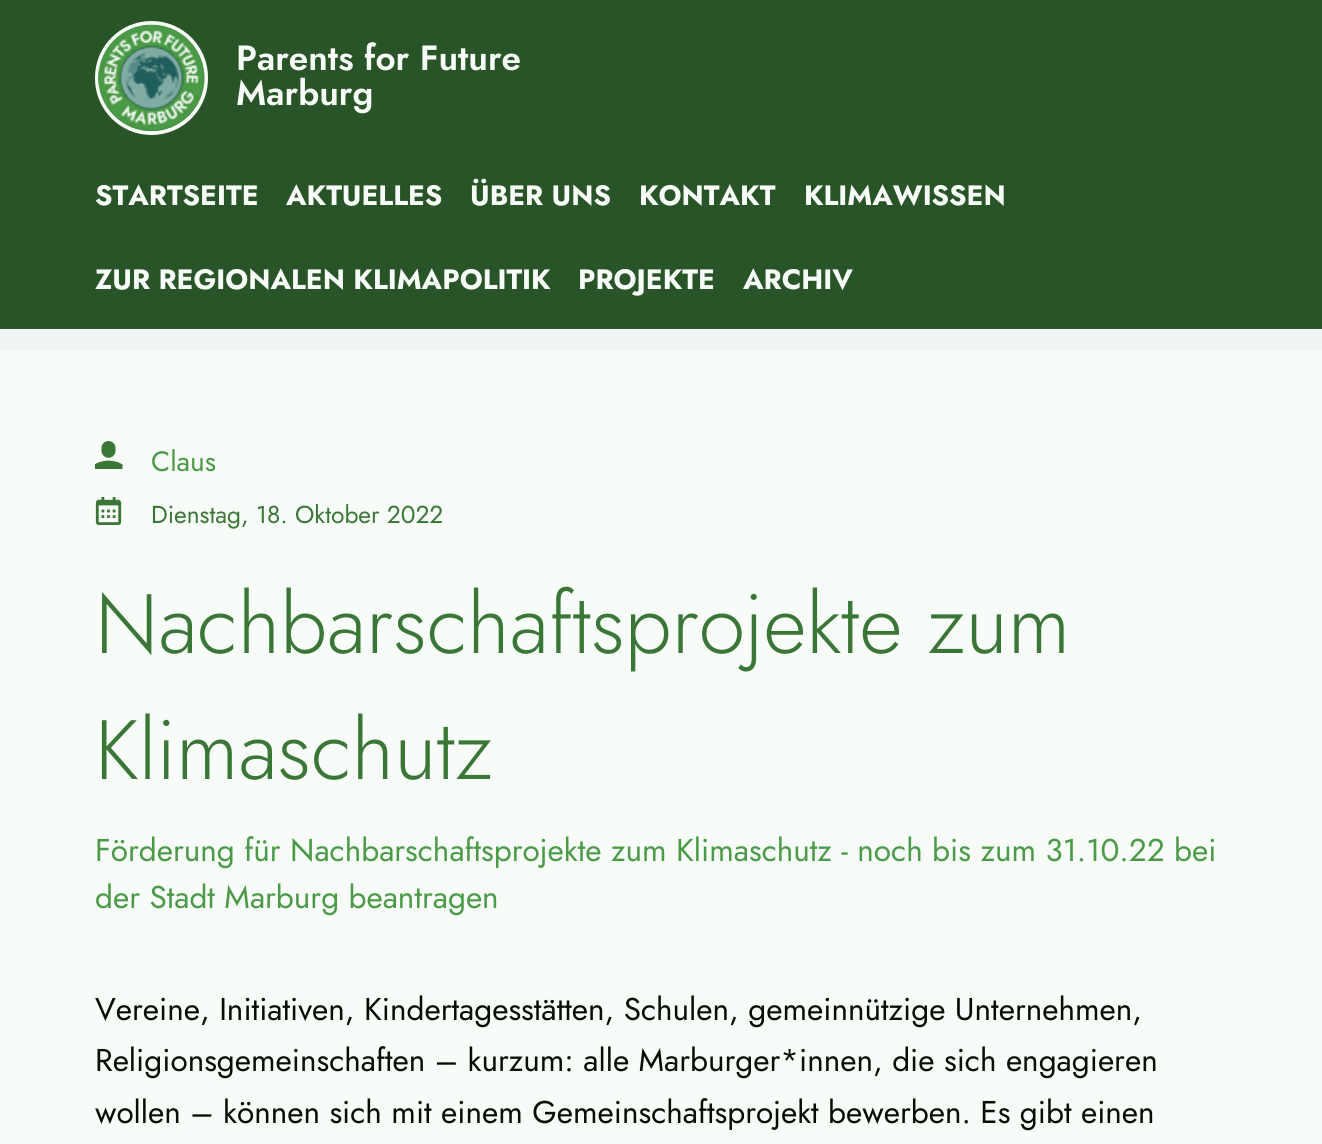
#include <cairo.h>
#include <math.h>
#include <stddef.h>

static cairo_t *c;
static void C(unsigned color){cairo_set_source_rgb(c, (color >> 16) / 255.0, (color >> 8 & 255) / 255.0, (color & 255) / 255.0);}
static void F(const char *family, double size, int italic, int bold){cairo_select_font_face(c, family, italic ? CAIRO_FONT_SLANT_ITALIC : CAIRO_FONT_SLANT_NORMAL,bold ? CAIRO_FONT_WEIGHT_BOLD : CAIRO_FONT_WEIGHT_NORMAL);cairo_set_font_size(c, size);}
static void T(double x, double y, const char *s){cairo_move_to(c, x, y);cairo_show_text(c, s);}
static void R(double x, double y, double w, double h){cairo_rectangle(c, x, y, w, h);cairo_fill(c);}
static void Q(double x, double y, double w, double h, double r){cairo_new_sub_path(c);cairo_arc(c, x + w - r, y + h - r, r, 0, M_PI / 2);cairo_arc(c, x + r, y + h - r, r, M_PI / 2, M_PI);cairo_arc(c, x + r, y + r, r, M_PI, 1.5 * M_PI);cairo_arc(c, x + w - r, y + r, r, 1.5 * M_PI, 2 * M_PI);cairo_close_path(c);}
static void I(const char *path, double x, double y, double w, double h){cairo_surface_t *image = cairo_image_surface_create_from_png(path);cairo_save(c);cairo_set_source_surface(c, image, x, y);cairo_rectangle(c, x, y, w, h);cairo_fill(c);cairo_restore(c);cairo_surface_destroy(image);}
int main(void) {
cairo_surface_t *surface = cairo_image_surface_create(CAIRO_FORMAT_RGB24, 1322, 1144);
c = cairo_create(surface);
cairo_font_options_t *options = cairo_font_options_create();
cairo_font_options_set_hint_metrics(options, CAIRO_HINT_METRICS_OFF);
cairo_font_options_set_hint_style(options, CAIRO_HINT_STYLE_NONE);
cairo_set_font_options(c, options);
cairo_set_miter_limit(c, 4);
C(0xeff5f5);
cairo_paint(c);
C(0x295427);
R(0,0,1322,329);
Q(97,23,109,110,54.5);
C(0xf8fcf8);
cairo_set_line_width(c,4);
cairo_stroke(c);
I("1.png",98,24,107,108);
F("Jost SemiBold",35,0,0);
T(236,70,"Parents for Future");
T(236,105,"Marburg");
F("Jost",28,0,1);
T(95,205,"STARTSEITE");
T(286,205,"AKTUELLES");
T(470,205,"ÜBER UNS");
T(639,205,"KONTAKT");
T(804,205,"KLIMAWISSEN");
T(95,289,"ZUR REGIONALEN KLIMAPOLITIK");
T(578,289,"PROJEKTE");
T(743,289,"ARCHIV");
R(0,350,1322,794);
I("2.png",95,441,28,28);
F("Jost",28,0,0);
C(0x4b9a47);
T(151,471,"Claus");
I("3.png",95,497,27,28);
F("Jost",24.5,0,0);
C(0x3a7737);
T(151,523,"Dienstag, 18. Oktober 2022");
F("Jost Light",84,0,0);
T(95,653,"Nachbarschaftsprojekte zum");
T(95,779,"Klimaschutz");
F("Jost",31.5,0,0);
C(0x4b9a47);
T(95,861,"Förderung für Nachbarschaftsprojekte zum Klimaschutz - noch bis zum 31.10.22 bei");
T(95,908,"der Stadt Marburg beantragen");
C(0x070e06);
T(95,1020,"Vereine, Initiativen, Kindertagesstätten, Schulen, gemeinnützige Unternehmen,");
T(95,1071,"Religionsgemeinschaften – kurzum: alle Marburger*innen, die sich engagieren");
T(95,1123,"wollen – können sich mit einem Gemeinschaftsprojekt bewerben. Es gibt einen");
cairo_surface_write_to_png(surface, "o.png");
cairo_font_options_destroy(options);
cairo_destroy(c);
cairo_surface_destroy(surface);
return 0;
}
